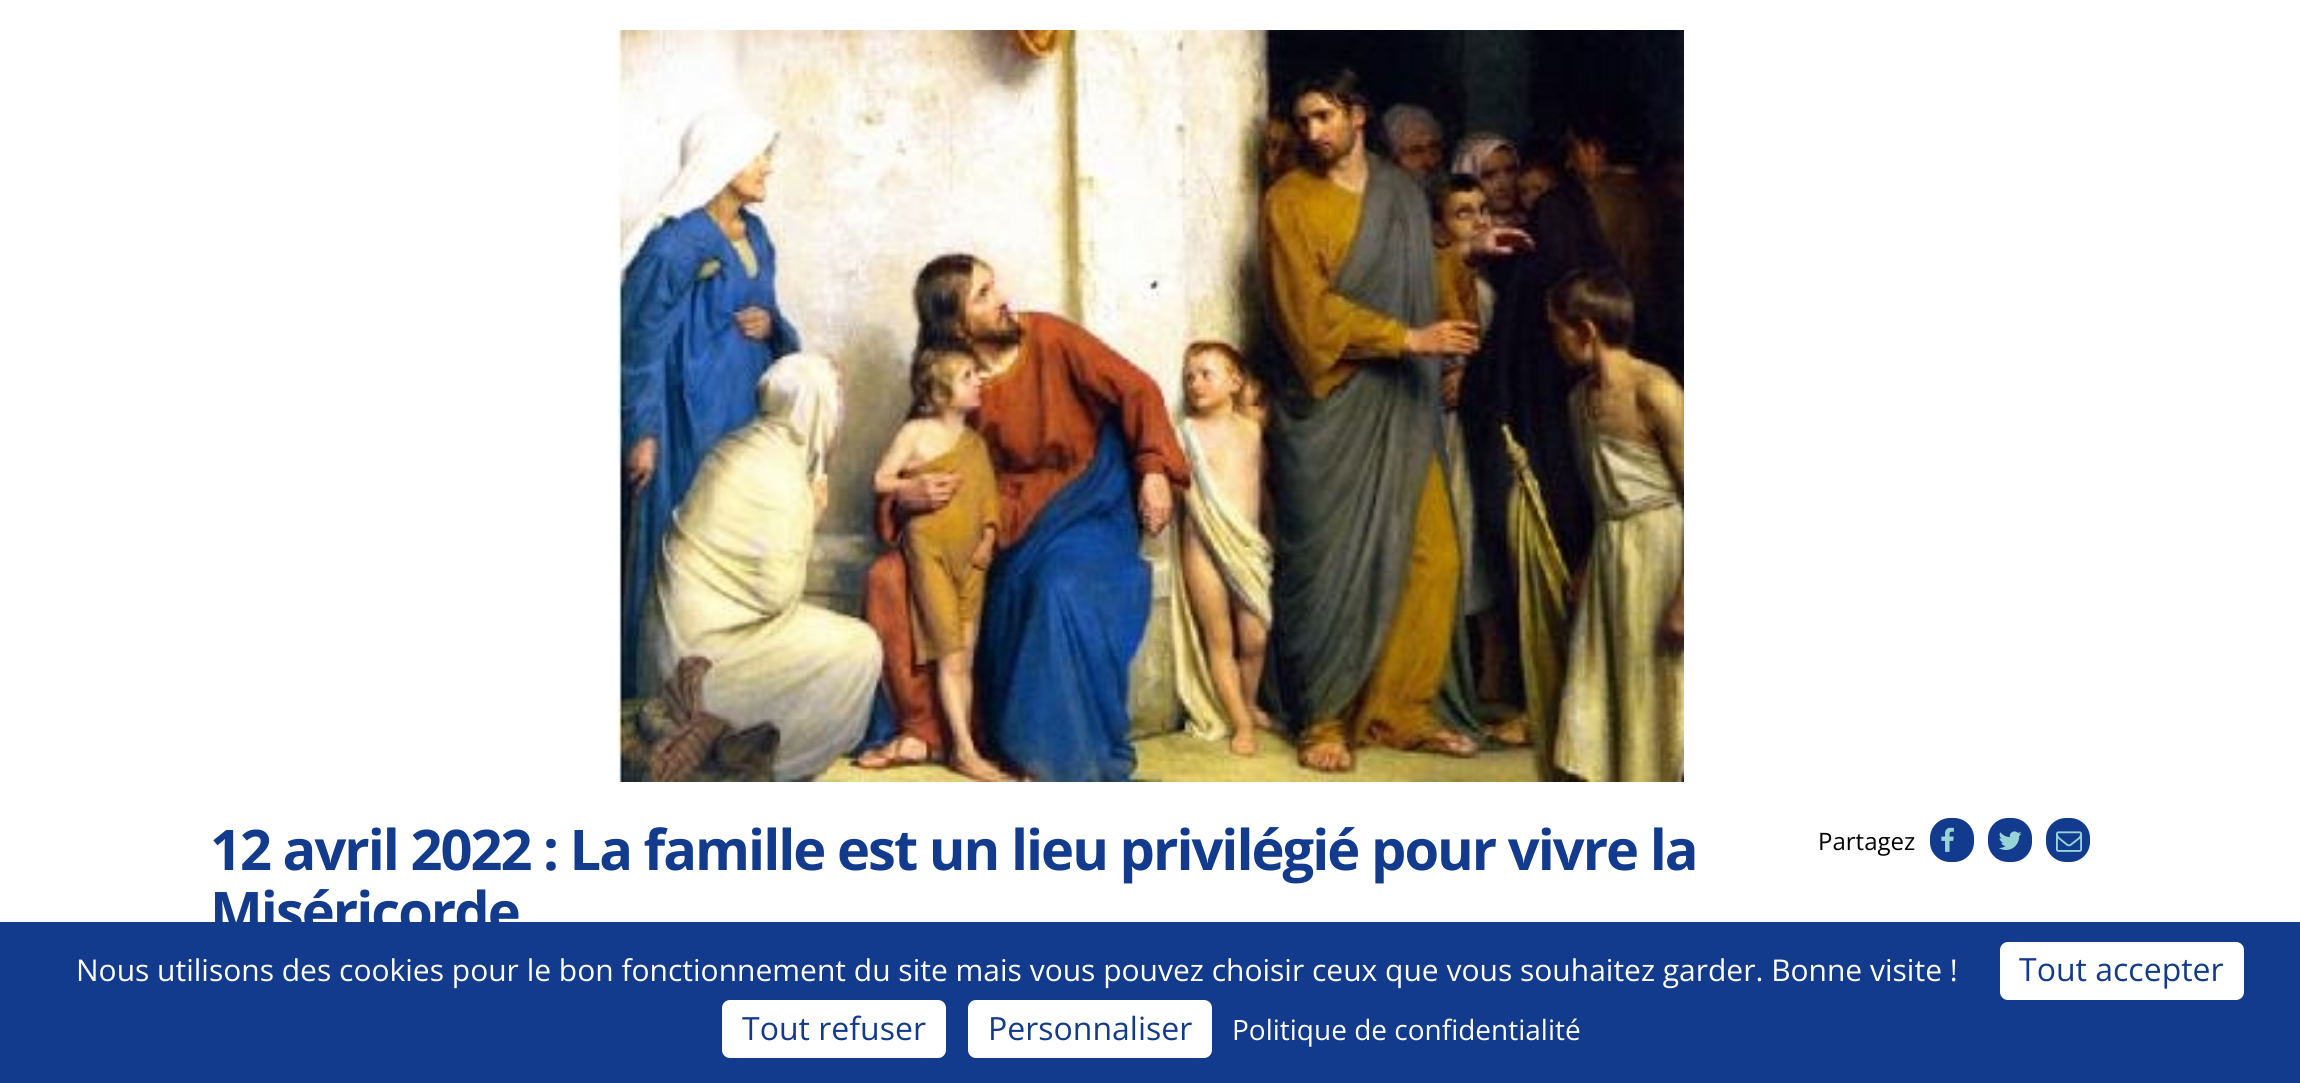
#include <cairo.h>
#include <math.h>
#include <stddef.h>

static cairo_t *c;
static void C(unsigned color){cairo_set_source_rgb(c, (color >> 16) / 255.0, (color >> 8 & 255) / 255.0, (color & 255) / 255.0);}
static void F(const char *family, double size, int italic, int bold){cairo_select_font_face(c, family, italic ? CAIRO_FONT_SLANT_ITALIC : CAIRO_FONT_SLANT_NORMAL,bold ? CAIRO_FONT_WEIGHT_BOLD : CAIRO_FONT_WEIGHT_NORMAL);cairo_set_font_size(c, size);}
static void T(double x, double y, const char *s){cairo_move_to(c, x, y);cairo_show_text(c, s);}
static void L(double x, double y, const char *s, double letter, double word){cairo_move_to(c, x, y);while (*s) {char ch[5] = {0};int n = 0;do ch[n++] = *s++; while ((*s & 0xC0) == 0x80);cairo_show_text(c, ch);cairo_rel_move_to(c, letter + word * (*ch == ' '), 0);}}
static void R(double x, double y, double w, double h){cairo_rectangle(c, x, y, w, h);cairo_fill(c);}
static void Q(double x, double y, double w, double h, double r){cairo_new_sub_path(c);cairo_arc(c, x + w - r, y + h - r, r, 0, M_PI / 2);cairo_arc(c, x + r, y + h - r, r, M_PI / 2, M_PI);cairo_arc(c, x + r, y + r, r, M_PI, 1.5 * M_PI);cairo_arc(c, x + w - r, y + r, r, 1.5 * M_PI, 2 * M_PI);cairo_close_path(c);}
static void I(const char *path, double x, double y, double w, double h){cairo_surface_t *image = cairo_image_surface_create_from_png(path);cairo_save(c);cairo_set_source_surface(c, image, x, y);cairo_rectangle(c, x, y, w, h);cairo_fill(c);cairo_restore(c);cairo_surface_destroy(image);}
int main(void) {
cairo_surface_t *surface = cairo_image_surface_create(CAIRO_FORMAT_RGB24, 2300, 1083);
c = cairo_create(surface);
cairo_font_options_t *options = cairo_font_options_create();
cairo_font_options_set_hint_metrics(options, CAIRO_HINT_METRICS_OFF);
cairo_font_options_set_hint_style(options, CAIRO_HINT_STYLE_NONE);
cairo_set_font_options(c, options);
cairo_set_miter_limit(c, 4);
C(0xffffff);
cairo_paint(c);
I("1.png",618,30,1066,752);
F("Open Sans",56,0,1);
C(0x133b8d);
L(210,870,"12 avril 2022 : La famille est un lieu privilégié pour vivre la",-2,0);
L(210,932,"Miséricorde",-2,0);
F("Open Sans",24,0,0);
C(0x000000);
T(1818,850,"Partagez");
C(0x133b8d);
Q(1930,818,44,44,20);
cairo_fill(c);
I("2.png",1941,827,13,25);
Q(1988,818,44,44,20);
cairo_fill(c);
I("3.png",1999,831,23,19);
Q(2046,818,44,44,20);
cairo_fill(c);
I("4.png",2056,831,26,21);
R(0,922,2300,161);
F("Open Sans",30,0,0);
C(0xffffff);
T(76,981,"Nous utilisons des cookies pour le bon fonctionnement du site mais vous pouvez choisir ceux que vous souhaitez garder. Bonne visite !");
Q(2000,942,244,58,8);
cairo_fill(c);
F("Open Sans",32,0,0);
C(0x133b8d);
T(2019,981,"Tout accepter");
C(0xffffff);
Q(722,1000,224,58,8);
cairo_fill(c);
C(0x133b8d);
T(742,1040,"Tout refuser");
C(0xffffff);
Q(968,1000,244,58,8);
cairo_fill(c);
C(0x133b8d);
T(988,1040,"Personnaliser");
F("Open Sans",28,0,0);
C(0xffffff);
T(1232,1040,"Politique de confidentialité");
cairo_surface_write_to_png(surface, "o.png");
cairo_font_options_destroy(options);
cairo_destroy(c);
cairo_surface_destroy(surface);
return 0;
}
